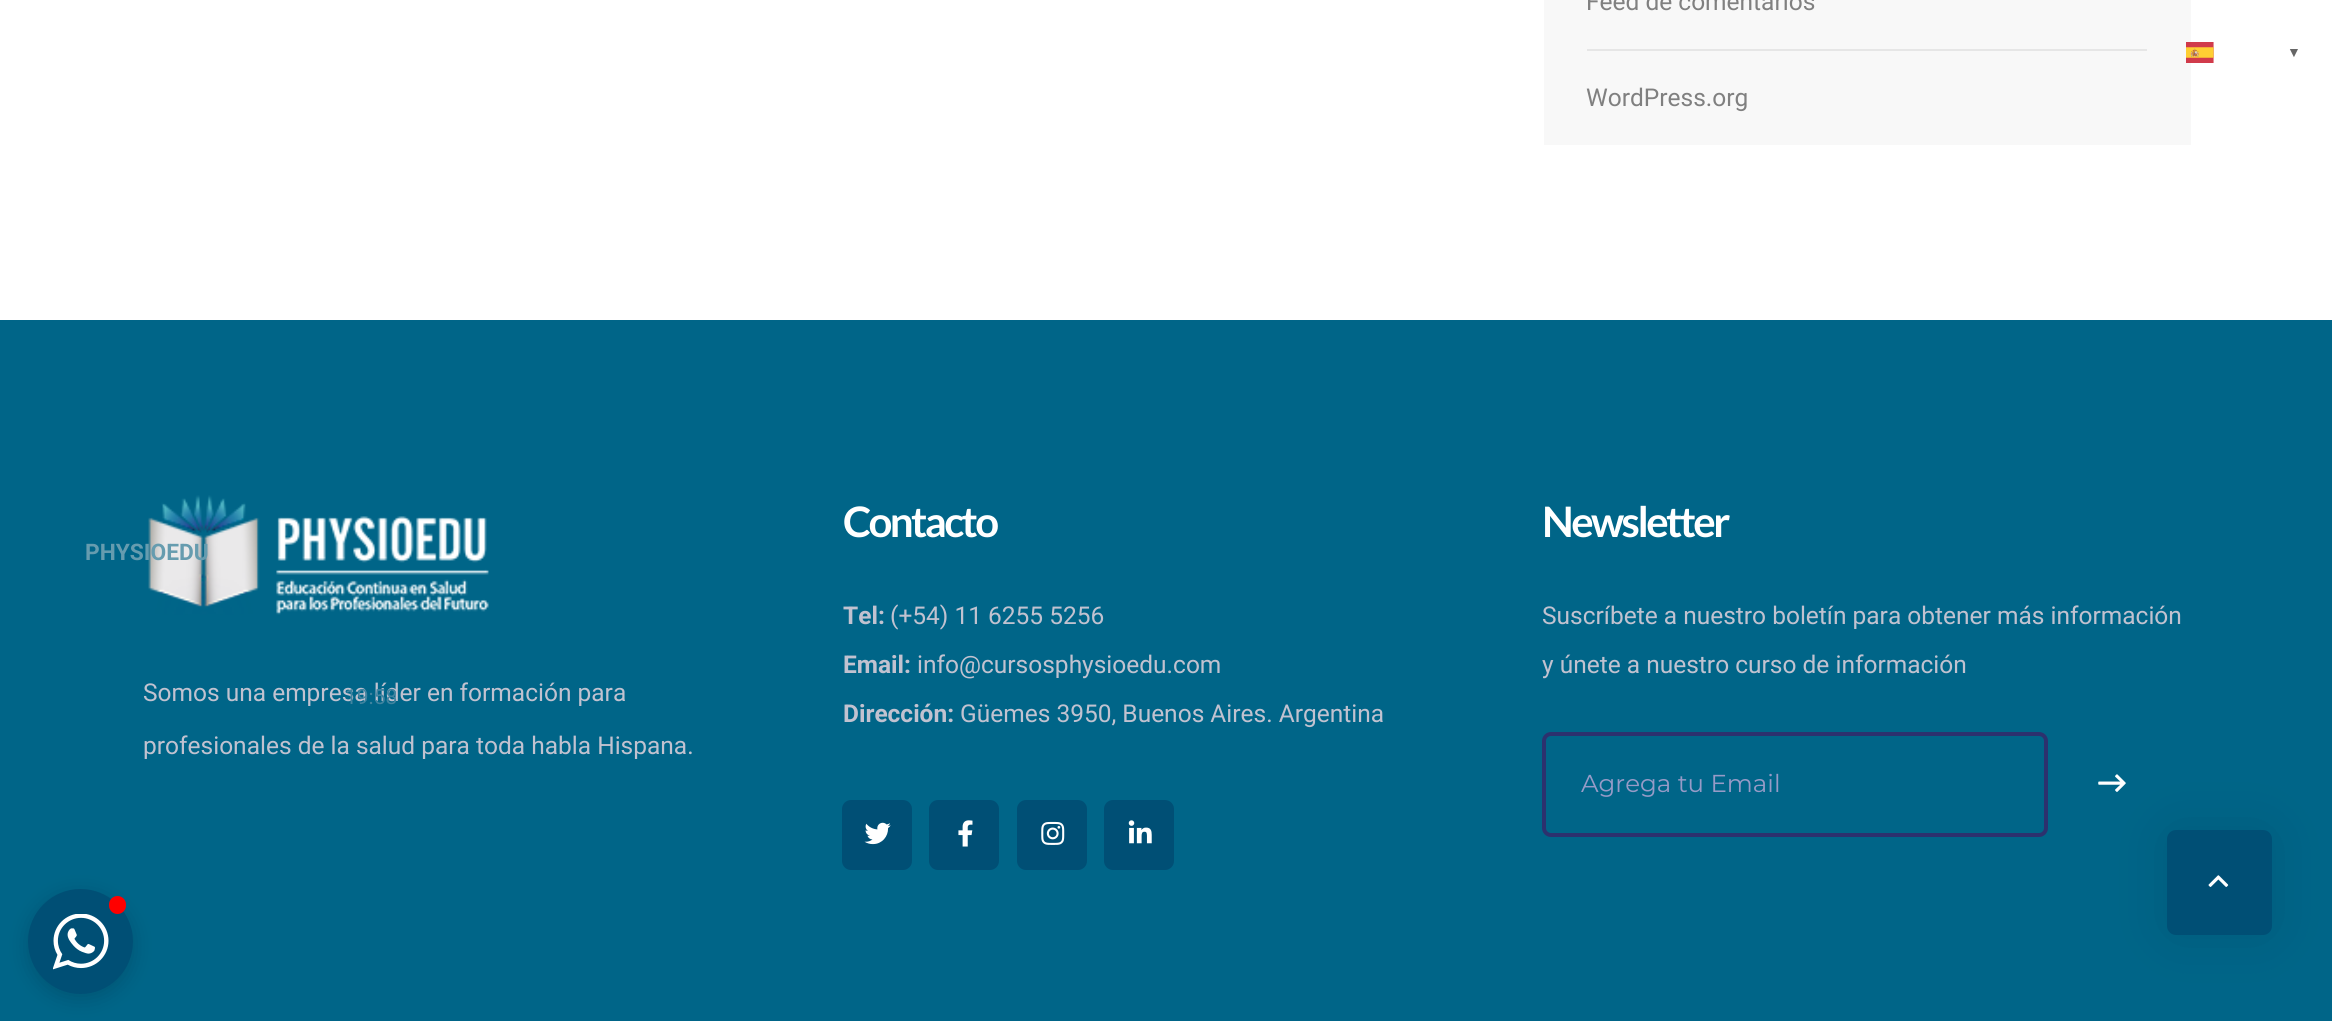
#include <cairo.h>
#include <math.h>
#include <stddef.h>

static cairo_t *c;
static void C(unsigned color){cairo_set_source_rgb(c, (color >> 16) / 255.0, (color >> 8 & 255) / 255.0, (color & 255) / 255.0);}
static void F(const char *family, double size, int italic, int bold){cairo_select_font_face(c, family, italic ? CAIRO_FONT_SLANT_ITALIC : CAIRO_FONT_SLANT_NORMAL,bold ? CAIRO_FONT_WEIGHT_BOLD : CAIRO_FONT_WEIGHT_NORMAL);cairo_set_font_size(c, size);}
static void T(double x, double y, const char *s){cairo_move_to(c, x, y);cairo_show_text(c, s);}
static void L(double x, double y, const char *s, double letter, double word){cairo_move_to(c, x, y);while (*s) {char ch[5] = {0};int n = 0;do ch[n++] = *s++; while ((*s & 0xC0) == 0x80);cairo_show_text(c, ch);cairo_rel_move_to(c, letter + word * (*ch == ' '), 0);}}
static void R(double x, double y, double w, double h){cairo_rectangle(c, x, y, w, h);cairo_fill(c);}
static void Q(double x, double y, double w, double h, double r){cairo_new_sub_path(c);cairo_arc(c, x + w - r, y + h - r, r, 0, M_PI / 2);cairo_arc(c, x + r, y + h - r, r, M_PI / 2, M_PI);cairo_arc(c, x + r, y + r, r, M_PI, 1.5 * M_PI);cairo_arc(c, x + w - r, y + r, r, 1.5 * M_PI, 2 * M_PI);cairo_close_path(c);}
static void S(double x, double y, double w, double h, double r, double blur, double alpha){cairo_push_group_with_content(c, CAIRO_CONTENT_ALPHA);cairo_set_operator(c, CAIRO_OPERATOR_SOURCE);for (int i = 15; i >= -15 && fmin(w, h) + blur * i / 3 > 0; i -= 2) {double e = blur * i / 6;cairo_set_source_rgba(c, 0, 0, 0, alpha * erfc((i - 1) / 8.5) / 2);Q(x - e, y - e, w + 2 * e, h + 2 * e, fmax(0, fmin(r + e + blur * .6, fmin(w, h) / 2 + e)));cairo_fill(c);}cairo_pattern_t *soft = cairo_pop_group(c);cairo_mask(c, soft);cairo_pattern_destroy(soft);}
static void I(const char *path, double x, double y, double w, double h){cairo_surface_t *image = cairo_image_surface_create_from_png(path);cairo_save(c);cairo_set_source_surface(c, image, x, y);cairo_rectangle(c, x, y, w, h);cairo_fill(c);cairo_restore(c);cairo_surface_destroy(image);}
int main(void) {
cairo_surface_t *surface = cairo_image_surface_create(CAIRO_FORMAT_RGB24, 2332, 1021);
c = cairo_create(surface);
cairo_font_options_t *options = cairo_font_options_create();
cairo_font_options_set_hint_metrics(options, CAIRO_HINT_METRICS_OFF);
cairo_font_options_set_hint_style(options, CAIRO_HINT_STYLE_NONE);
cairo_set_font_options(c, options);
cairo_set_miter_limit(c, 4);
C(0xffffff);
cairo_paint(c);
C(0xf8f8f8);
R(1544,0,647,145);
F("Roboto",24.5,0,0);
C(0x808080);
T(1586,10,"Feed de comentarios");
C(0xe6e6e6);
R(1587,49,560,2);
C(0x808080);
T(1586,106,"WordPress.org");
C(0x006588);
R(0,320,2332,701);
I("2.png",148,495,341,120);
F("Roboto",22.75,0,1);
C(0x669caf);
T(85,560,"PHYSIOEDU");
F("Roboto",24.5,0,0);
C(0xc1c2d0);
T(143,701,"Somos una empresa líder en formación para");
F("Roboto",21,0,0);
C(0x4184a0);
T(345,704,"19:58");
C(0x000000);
S(28,894,105,105,52.5,10.5,.15);
C(0x004f75);
cairo_arc(c,80.5,941.5,52.5,0,2 * M_PI);
cairo_fill(c);
C(0xff0000);
Q(109,896,17,18,8.5);
cairo_fill(c);
I("1.png",53,914,56,56);
F("Roboto",24.5,0,0);
C(0xc1c2d0);
T(143,754,"profesionales de la salud para toda habla Hispana.");
F("Lato",42,0,1);
C(0xffffff);
L(843,537,"Contacto",-2.6,0);
F("Roboto",24.5,0,1);
C(0xc1c2d0);
T(843,624,"Tel:");
F("Roboto",24.5,0,0);
T(890,624,"(+54) 11 6255 5256");
F("Roboto",24.5,0,1);
T(843,673,"Email:");
F("Roboto",24.5,0,0);
T(917,673,"info@cursosphysioedu.com");
F("Roboto",24.5,0,1);
T(843,722,"Dirección:");
F("Roboto",24.5,0,0);
T(960,722,"Güemes 3950, Buenos Aires. Argentina");
C(0x004f75);
Q(842,800,70,70,9);
cairo_fill(c);
I("3.png",864,822,27,23);
Q(929,800,70,70,9);
cairo_fill(c);
I("4.png",958,820,15,27);
Q(1017,800,70,70,9);
cairo_fill(c);
I("5.png",1041,821,24,24);
Q(1104,800,70,70,9);
cairo_fill(c);
I("6.png",1128,820,24,24);
F("Lato",42,0,1);
C(0xffffff);
L(1542,537,"Newsletter",-2.6,0);
F("Roboto",24.5,0,0);
C(0xc1c2d0);
T(1542,624,"Suscríbete a nuestro boletín para obtener más información");
T(1542,673,"y únete a nuestro curso de información");
Q(1544,734,502,101,7);
C(0x2c316e);
cairo_set_line_width(c,4);
cairo_stroke(c);
F("Montserrat",24.5,0,0);
C(0x979bc7);
T(1581,792,"Agrega tu Email");
I("7.png",2098,774,28,18);
I("8.png",2186,42,28,21);
F("Liberation Serif",14,0,1);
C(0x666666);
T(2287,57,"▼");
C(0x000000);
S(2167,830,105,105,9,26,.1);
C(0x004f75);
Q(2167,830,105,105,9);
cairo_fill(c);
I("9.png",2208,875,21,12);
cairo_surface_write_to_png(surface, "o.png");
cairo_font_options_destroy(options);
cairo_destroy(c);
cairo_surface_destroy(surface);
return 0;
}
